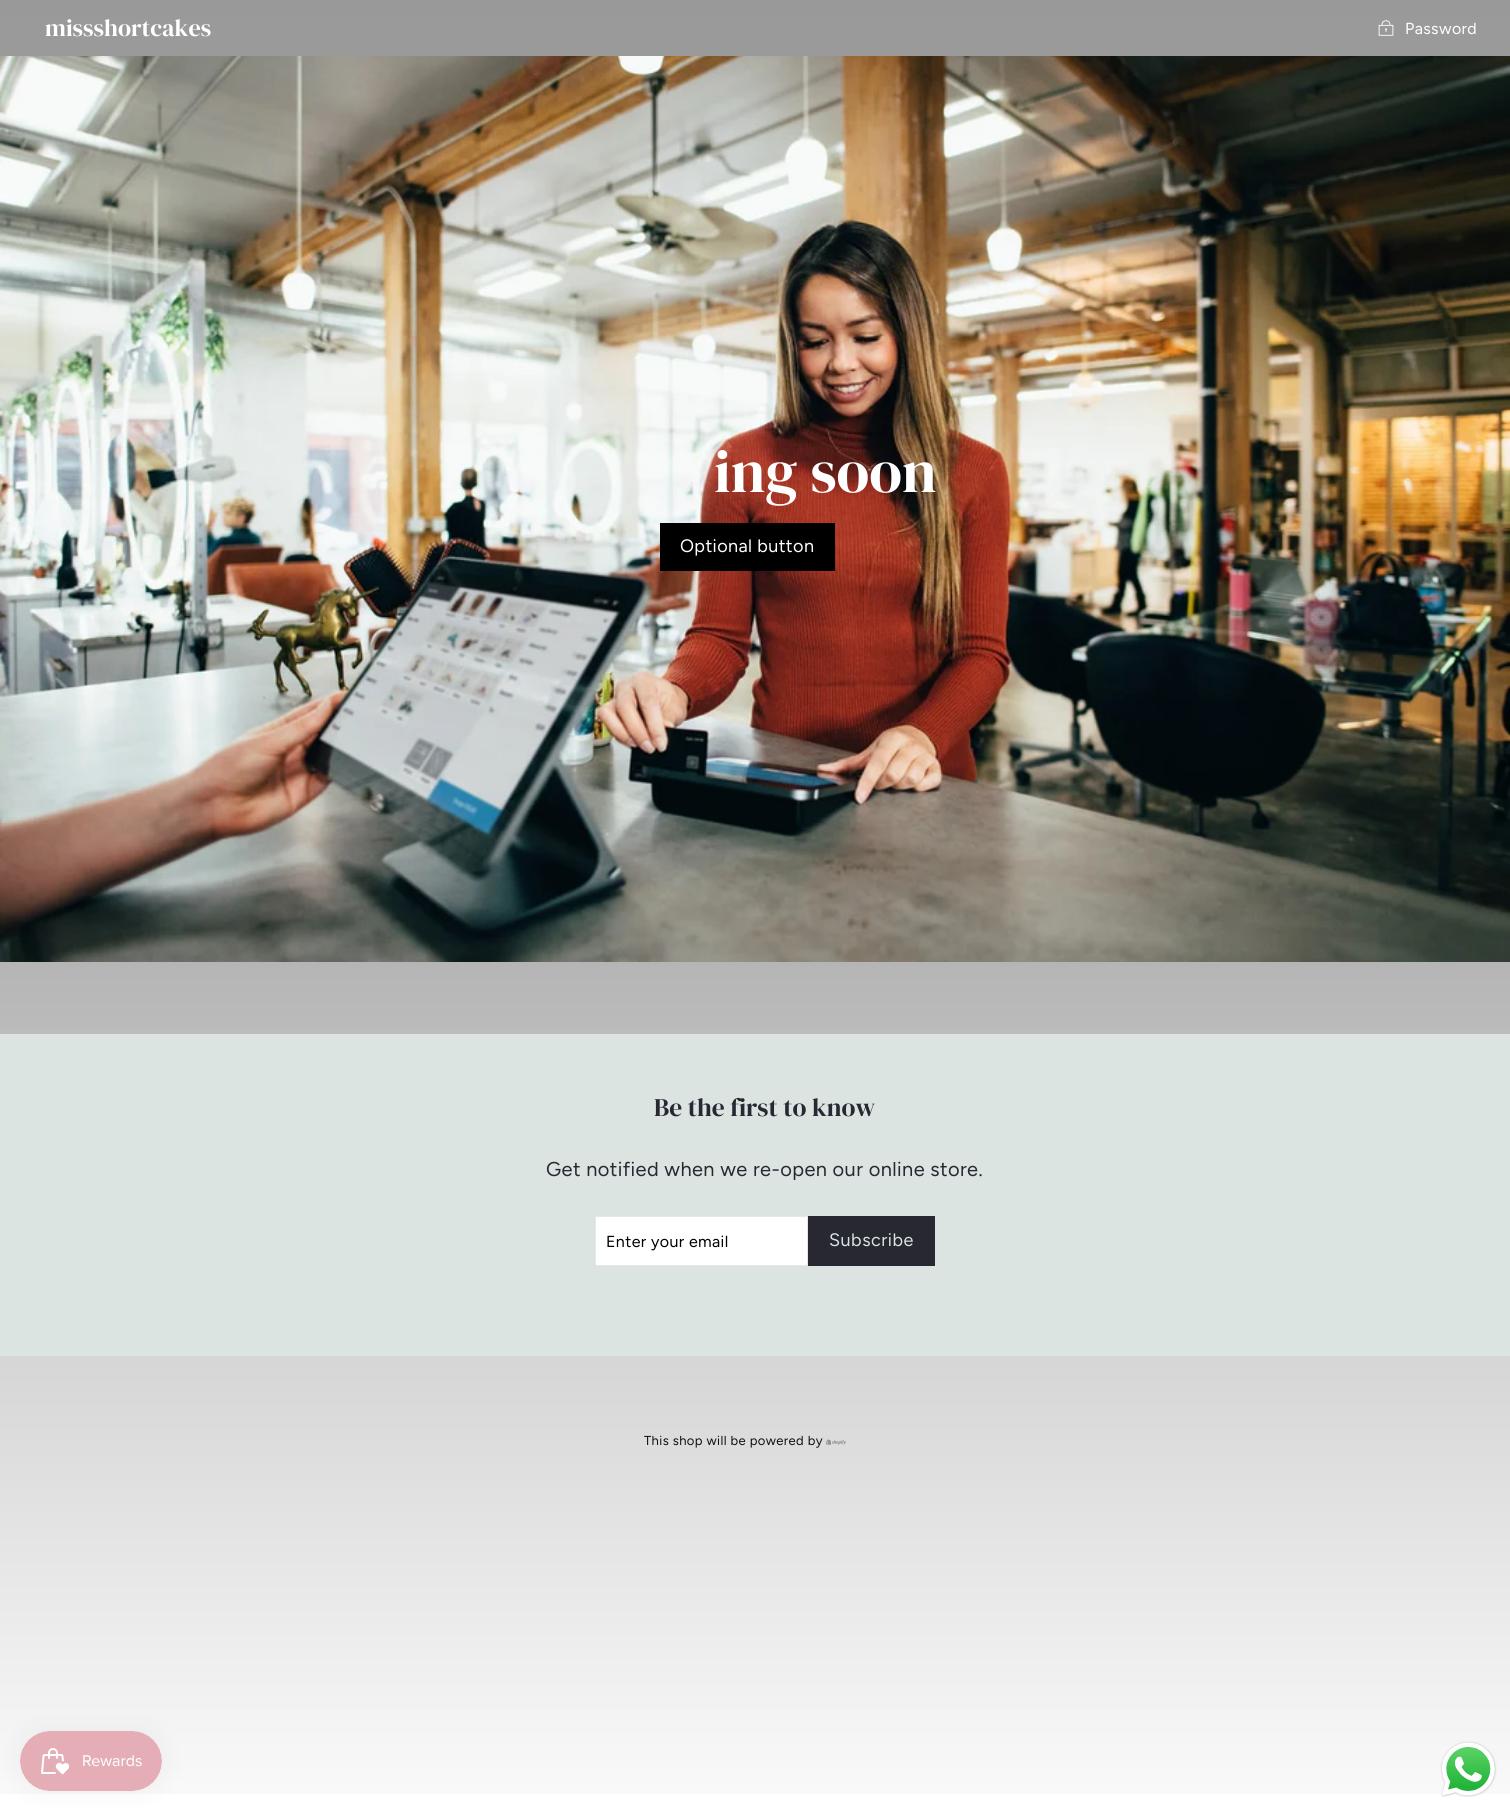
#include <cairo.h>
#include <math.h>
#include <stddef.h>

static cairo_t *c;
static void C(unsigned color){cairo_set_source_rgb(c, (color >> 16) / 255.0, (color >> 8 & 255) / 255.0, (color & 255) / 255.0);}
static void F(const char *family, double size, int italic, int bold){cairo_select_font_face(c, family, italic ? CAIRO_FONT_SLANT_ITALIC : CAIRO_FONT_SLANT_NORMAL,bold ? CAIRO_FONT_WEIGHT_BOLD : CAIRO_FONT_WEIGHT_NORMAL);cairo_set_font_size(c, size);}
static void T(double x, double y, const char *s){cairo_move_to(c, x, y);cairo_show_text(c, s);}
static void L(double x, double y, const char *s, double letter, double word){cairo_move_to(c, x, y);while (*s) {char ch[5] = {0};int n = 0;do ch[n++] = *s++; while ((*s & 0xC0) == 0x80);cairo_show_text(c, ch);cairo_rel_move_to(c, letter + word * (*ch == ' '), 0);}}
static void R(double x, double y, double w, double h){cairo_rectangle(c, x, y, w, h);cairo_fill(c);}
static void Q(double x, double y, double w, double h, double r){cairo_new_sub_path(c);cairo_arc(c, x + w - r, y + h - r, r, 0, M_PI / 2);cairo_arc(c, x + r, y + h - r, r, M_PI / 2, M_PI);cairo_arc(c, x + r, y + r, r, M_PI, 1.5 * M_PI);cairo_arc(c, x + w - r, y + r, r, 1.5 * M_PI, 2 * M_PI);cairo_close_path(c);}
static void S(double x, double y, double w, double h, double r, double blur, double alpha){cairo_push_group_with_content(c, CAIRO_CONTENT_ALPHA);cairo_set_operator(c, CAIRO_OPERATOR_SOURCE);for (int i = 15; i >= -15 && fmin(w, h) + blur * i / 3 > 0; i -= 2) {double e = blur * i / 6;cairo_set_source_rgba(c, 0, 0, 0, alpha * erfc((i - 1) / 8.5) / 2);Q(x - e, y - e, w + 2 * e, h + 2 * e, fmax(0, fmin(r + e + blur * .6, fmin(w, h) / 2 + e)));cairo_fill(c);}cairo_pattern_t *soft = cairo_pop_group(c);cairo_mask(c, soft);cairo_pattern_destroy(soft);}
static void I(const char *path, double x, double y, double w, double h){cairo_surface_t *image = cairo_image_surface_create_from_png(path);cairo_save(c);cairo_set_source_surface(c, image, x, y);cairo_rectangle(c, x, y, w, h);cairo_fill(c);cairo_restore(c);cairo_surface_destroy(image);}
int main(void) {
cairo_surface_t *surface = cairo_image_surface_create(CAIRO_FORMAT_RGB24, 1510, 1811);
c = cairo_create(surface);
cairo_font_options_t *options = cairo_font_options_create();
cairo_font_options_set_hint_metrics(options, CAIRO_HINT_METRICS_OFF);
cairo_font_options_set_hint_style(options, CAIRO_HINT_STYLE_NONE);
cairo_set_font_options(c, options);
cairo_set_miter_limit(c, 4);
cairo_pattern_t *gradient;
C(0xffffff);
cairo_paint(c);
F("Figtree",13,0,0);
C(0x121212);
L(644,1445,"This shop will be powered by",.4,0);
I("3.png",826,1439,20,6);
gradient = cairo_pattern_create_linear(755,0,755,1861);
cairo_pattern_add_color_stop_rgba(gradient,0,0,0,0,.4);
cairo_pattern_add_color_stop_rgba(gradient,.5,0,0,0,.3);
cairo_pattern_add_color_stop_rgba(gradient,1,0,0,0,0);
cairo_set_source(c,gradient);
cairo_pattern_destroy(gradient);
R(0,0,1510,1794);
F("DM Serif Display",24,0,0);
C(0xffffff);
T(45,36,"missshortcakes");
I("1.png",1378,20,16,16);
F("Figtree",16,0,0);
L(1405,34,"Password",.4,0);
I("2.png",0,56,1510,906);
F("DM Serif Display",60,0,0);
T(714,492,"ing soon");
C(0x000000);
R(660,523,175,48);
F("Figtree",18,0,0);
C(0xffffff);
L(680,552,"Optional button",.4,0);
C(0xdbe4e1);
R(0,1034,1510,322);
F("DM Serif Display",25.5,0,0);
C(0x272831);
T(654,1116,"Be the first to know");
F("Figtree",20,0,0);
L(546,1176,"Get notified when we re-open our online store.",.4,0);
C(0xffffff);
cairo_rectangle(c,595.5,1216.5,212,49);
cairo_fill_preserve(c);
C(0xe8e8e1);
cairo_set_line_width(c,1);
cairo_stroke(c);
F("Figtree",16,0,0);
C(0x000000);
L(606,1247,"Enter your email",.4,0);
C(0x272831);
R(808,1216,127,50);
F("Figtree",18,0,0);
C(0xdbe4e1);
L(829,1246,"Subscribe",.5,0);
C(0x000000);
S(20,1731,142,60,30,12.5,.05);
I("4.png",20,1731,142,60);
I("5.png",1440,1741,57,56);
cairo_surface_write_to_png(surface, "o.png");
cairo_font_options_destroy(options);
cairo_destroy(c);
cairo_surface_destroy(surface);
return 0;
}
